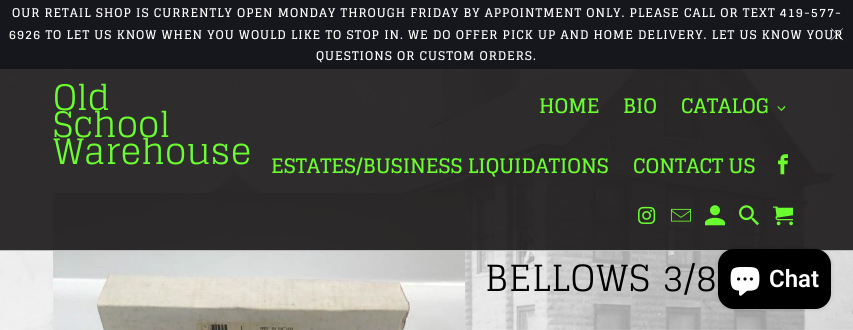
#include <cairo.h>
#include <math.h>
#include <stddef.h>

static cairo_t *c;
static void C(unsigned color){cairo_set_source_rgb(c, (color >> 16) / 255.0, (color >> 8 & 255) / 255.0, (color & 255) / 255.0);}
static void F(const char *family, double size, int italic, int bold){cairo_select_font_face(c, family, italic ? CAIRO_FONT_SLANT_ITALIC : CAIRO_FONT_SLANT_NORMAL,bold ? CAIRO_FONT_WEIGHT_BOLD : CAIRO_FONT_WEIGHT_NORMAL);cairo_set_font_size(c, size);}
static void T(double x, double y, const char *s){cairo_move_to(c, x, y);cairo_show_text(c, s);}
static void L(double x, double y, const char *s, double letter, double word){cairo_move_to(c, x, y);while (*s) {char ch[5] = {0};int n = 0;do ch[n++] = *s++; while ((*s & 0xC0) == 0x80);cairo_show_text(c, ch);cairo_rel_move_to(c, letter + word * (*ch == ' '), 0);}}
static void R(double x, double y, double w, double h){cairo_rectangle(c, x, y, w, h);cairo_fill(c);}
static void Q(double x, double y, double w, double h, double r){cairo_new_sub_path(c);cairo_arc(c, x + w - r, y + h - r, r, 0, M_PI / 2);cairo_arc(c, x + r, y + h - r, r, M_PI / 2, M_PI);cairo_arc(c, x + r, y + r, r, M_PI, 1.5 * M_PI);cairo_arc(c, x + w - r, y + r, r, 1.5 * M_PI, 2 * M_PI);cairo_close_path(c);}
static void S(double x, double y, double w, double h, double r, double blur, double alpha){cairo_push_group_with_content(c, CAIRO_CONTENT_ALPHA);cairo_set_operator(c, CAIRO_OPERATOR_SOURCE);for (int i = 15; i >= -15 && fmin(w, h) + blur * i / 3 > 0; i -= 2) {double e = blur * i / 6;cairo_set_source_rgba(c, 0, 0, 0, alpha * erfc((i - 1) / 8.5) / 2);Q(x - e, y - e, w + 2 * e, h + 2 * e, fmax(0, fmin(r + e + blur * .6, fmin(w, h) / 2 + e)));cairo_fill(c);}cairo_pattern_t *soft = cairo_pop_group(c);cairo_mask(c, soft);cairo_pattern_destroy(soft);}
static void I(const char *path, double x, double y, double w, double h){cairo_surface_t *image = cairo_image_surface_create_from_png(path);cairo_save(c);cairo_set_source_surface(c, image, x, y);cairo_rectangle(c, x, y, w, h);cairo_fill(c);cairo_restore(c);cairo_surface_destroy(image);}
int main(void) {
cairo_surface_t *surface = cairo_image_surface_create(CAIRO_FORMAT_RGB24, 853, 330);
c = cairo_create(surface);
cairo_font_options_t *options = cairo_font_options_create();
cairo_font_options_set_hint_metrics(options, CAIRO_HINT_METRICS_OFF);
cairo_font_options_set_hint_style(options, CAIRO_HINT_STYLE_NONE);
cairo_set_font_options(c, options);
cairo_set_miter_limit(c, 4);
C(0xffffff);
cairo_paint(c);
I("1.png",0,69,853,261);
I("9.png",53,193,412,137);
cairo_set_source_rgba(c,0.106,0.094,0.098,0.9);
R(0,69,853,181);
C(0xbbbbbb);
R(0,250,853,1);
C(0x16161d);
R(0,0,853,69);
F("Glegoo",12,0,1);
C(0xffffff);
L(12,17,"OUR RETAIL SHOP IS CURRENTLY OPEN MONDAY THROUGH FRIDAY BY APPOINTMENT ONLY. PLEASE CALL OR TEXT 419-577-",1,0);
L(9,39,"6926 TO LET US KNOW WHEN YOU WOULD LIKE TO STOP IN. WE DO OFFER PICK UP AND HOME DELIVERY. LET US KNOW YOUR",1,0);
L(316,60,"QUESTIONS OR CUSTOM ORDERS.",1,0);
I("2.png",831,28,12,13);
F("Glegoo",35,0,0);
C(0x6afe2e);
T(53,110,"Old");
T(53,137,"School");
T(53,164,"Warehouse");
F("Glegoo",20,0,1);
T(539,113,"HOME");
T(623,113,"BIO");
T(681,113,"CATALOG");
cairo_new_path(c);
cairo_move_to(c,784.5,106);
cairo_line_to(c,785.5,107);
cairo_line_to(c,781.5,111);
cairo_line_to(c,781,110);
cairo_close_path(c);
cairo_fill(c);
cairo_new_path(c);
cairo_move_to(c,778,106);
cairo_line_to(c,782,110);
cairo_line_to(c,781.5,111);
cairo_line_to(c,777.5,107);
cairo_close_path(c);
cairo_fill(c);
T(271,173,"ESTATES/BUSINESS LIQUIDATIONS");
I("3.png",778,154,10,21);
I("4.png",638,206,18,18);
I("5.png",671,208,20,14);
T(633,173,"CONTACT US");
I("6.png",705,205,20,21);
I("7.png",739,205,20,21);
I("8.png",773,206,20,20);
F("Glegoo",36,0,0);
C(0x000000);
L(485,291,"BELLOWS 3/8",1,0);
C(0x000000);
S(718,249,113,60,16,2.5,.15);
C(0x000000);
Q(718,249,113,60,16);
cairo_fill(c);
I("10.png",730,267,30,29);
F("Roboto SemiBold",24,0,0);
C(0xffffff);
T(769,287,"Chat");
cairo_surface_write_to_png(surface, "o.png");
cairo_font_options_destroy(options);
cairo_destroy(c);
cairo_surface_destroy(surface);
return 0;
}
